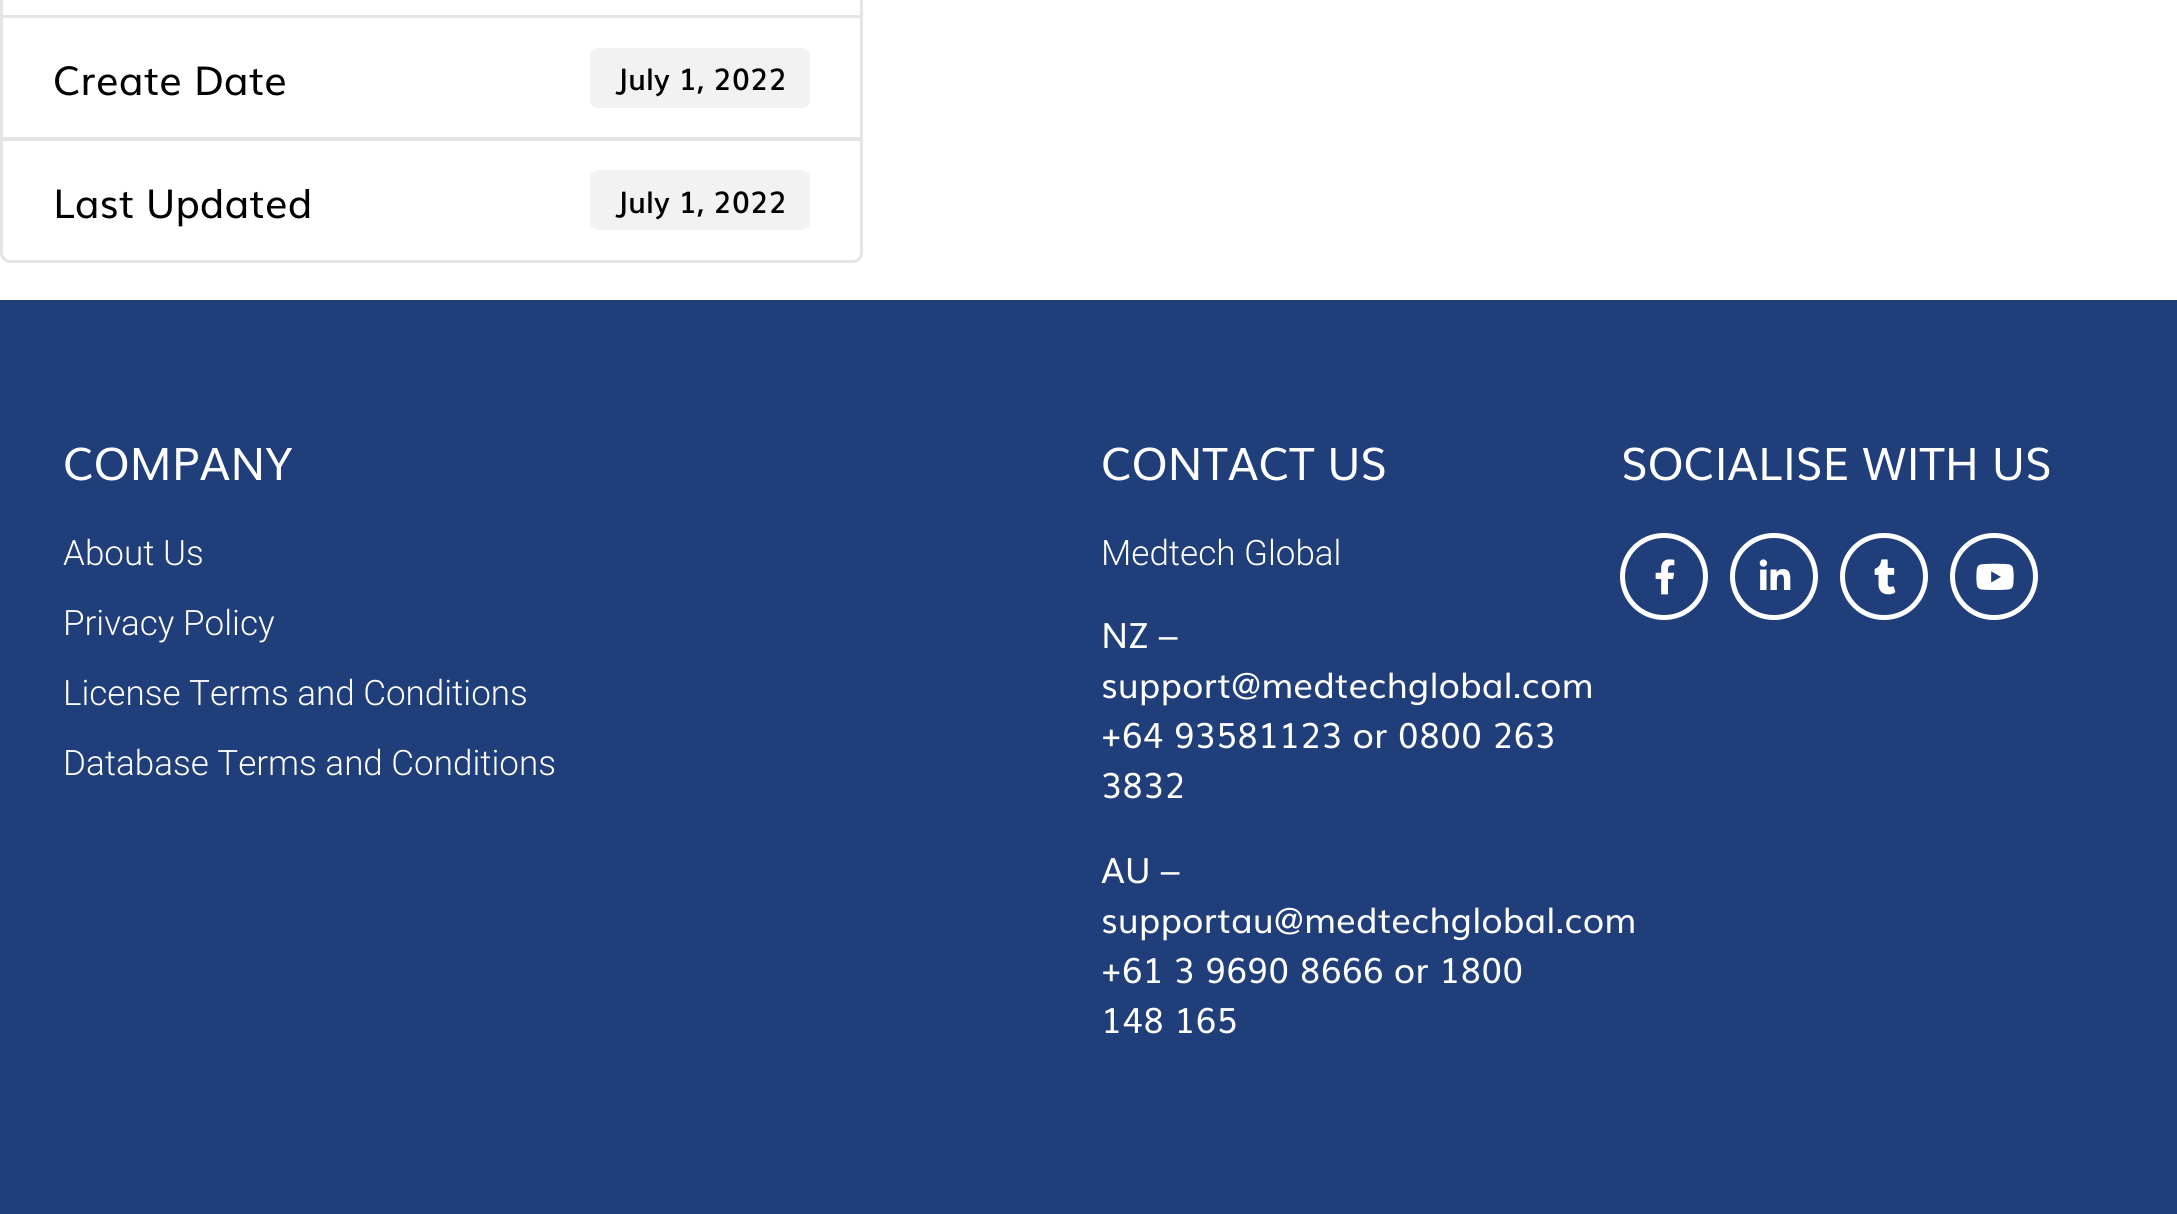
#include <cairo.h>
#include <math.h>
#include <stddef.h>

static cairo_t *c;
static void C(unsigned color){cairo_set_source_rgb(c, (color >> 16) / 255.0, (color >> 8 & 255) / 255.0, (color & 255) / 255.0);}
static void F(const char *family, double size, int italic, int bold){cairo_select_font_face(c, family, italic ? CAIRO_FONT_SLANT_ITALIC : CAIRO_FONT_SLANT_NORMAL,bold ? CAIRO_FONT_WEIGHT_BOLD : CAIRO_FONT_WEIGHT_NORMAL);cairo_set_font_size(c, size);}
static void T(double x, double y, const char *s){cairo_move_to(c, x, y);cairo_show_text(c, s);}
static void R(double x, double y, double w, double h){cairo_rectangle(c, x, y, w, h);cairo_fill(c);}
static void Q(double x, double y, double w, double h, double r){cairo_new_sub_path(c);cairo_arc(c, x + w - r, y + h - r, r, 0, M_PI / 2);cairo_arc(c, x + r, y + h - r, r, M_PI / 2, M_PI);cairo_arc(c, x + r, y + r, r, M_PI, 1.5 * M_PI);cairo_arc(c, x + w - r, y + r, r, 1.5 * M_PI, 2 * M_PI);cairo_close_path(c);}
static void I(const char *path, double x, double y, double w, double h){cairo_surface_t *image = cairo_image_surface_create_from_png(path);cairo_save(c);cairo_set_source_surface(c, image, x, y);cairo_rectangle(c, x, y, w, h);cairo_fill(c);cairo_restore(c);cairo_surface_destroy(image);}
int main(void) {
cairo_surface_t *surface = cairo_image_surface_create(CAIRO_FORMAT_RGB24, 2177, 1214);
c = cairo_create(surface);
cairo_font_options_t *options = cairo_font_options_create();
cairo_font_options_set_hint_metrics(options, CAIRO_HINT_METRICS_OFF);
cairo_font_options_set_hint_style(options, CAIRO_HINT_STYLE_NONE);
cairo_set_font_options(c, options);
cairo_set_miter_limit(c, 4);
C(0xffffff);
cairo_paint(c);
cairo_rectangle(c,1.5,-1.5,860,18);
C(0xe5e5e5);
cairo_set_line_width(c,3);
cairo_stroke(c);
cairo_rectangle(c,1.5,16.5,860,122);
cairo_stroke(c);
F("Muli",40,0,0);
C(0x000000);
T(53,95,"Create Date");
C(0xf2f2f2);
Q(590,48,220,60,8);
cairo_fill(c);
F("Muli SemiBold",30,0,0);
C(0x000000);
T(615,90,"July 1, 2022");
C(0xffffff);
cairo_new_path(c);
cairo_move_to(c,1.5,139.5);
cairo_line_to(c,861.5,139.5);
cairo_line_to(c,861.5,253);
cairo_curve_to(c,861.5,257.5,857.5,261.5,853,261.5);
cairo_line_to(c,10,261.5);
cairo_curve_to(c,5.5,261.5,1.5,257.5,1.5,253);
cairo_close_path(c);
cairo_fill_preserve(c);
C(0xe5e5e5);
cairo_stroke(c);
F("Muli",40,0,0);
C(0x000000);
T(53,218,"Last Updated");
C(0xf2f2f2);
Q(590,170,220,60,8);
cairo_fill(c);
F("Muli SemiBold",30,0,0);
C(0x000000);
T(615,213,"July 1, 2022");
C(0x203e7a);
R(0,300,2177,914);
F("Muli",45,0,0);
C(0xffffff);
T(63,480,"COMPANY");
F("Roboto Light",35,0,0);
T(63,565,"About Us");
T(63,635,"Privacy Policy");
T(63,705,"License Terms and Conditions");
T(63,775,"Database Terms and Conditions");
F("Muli",45,0,0);
T(1101,480,"CONTACT US");
F("Roboto Light",35,0,0);
T(1101,565,"Medtech Global");
F("Muli",35,0,0);
T(1101,648,"NZ –");
T(1101,698,"support@medtechglobal.com");
T(1101,748,"+64 93581123 or 0800 263");
T(1101,798,"3832");
T(1101,883,"AU –");
T(1101,933,"supportau@medtechglobal.com");
T(1101,983,"+61 3 9690 8666 or 1800");
T(1101,1033,"148 165");
F("Muli",45,0,0);
T(1621,480,"SOCIALISE WITH US");
Q(1622.5,535.5,83,82,41);
cairo_set_line_width(c,5);
cairo_stroke(c);
I("1.png",1655,559,20,36);
Q(1732.5,535.5,83,82,41);
cairo_stroke(c);
I("2.png",1759,559,32,31);
Q(1842.5,535.5,83,82,41);
cairo_stroke(c);
I("3.png",1874,559,22,36);
Q(1952.5,535.5,83,82,41);
cairo_stroke(c);
I("4.png",1976,563,38,27);
cairo_surface_write_to_png(surface, "o.png");
cairo_font_options_destroy(options);
cairo_destroy(c);
cairo_surface_destroy(surface);
return 0;
}
